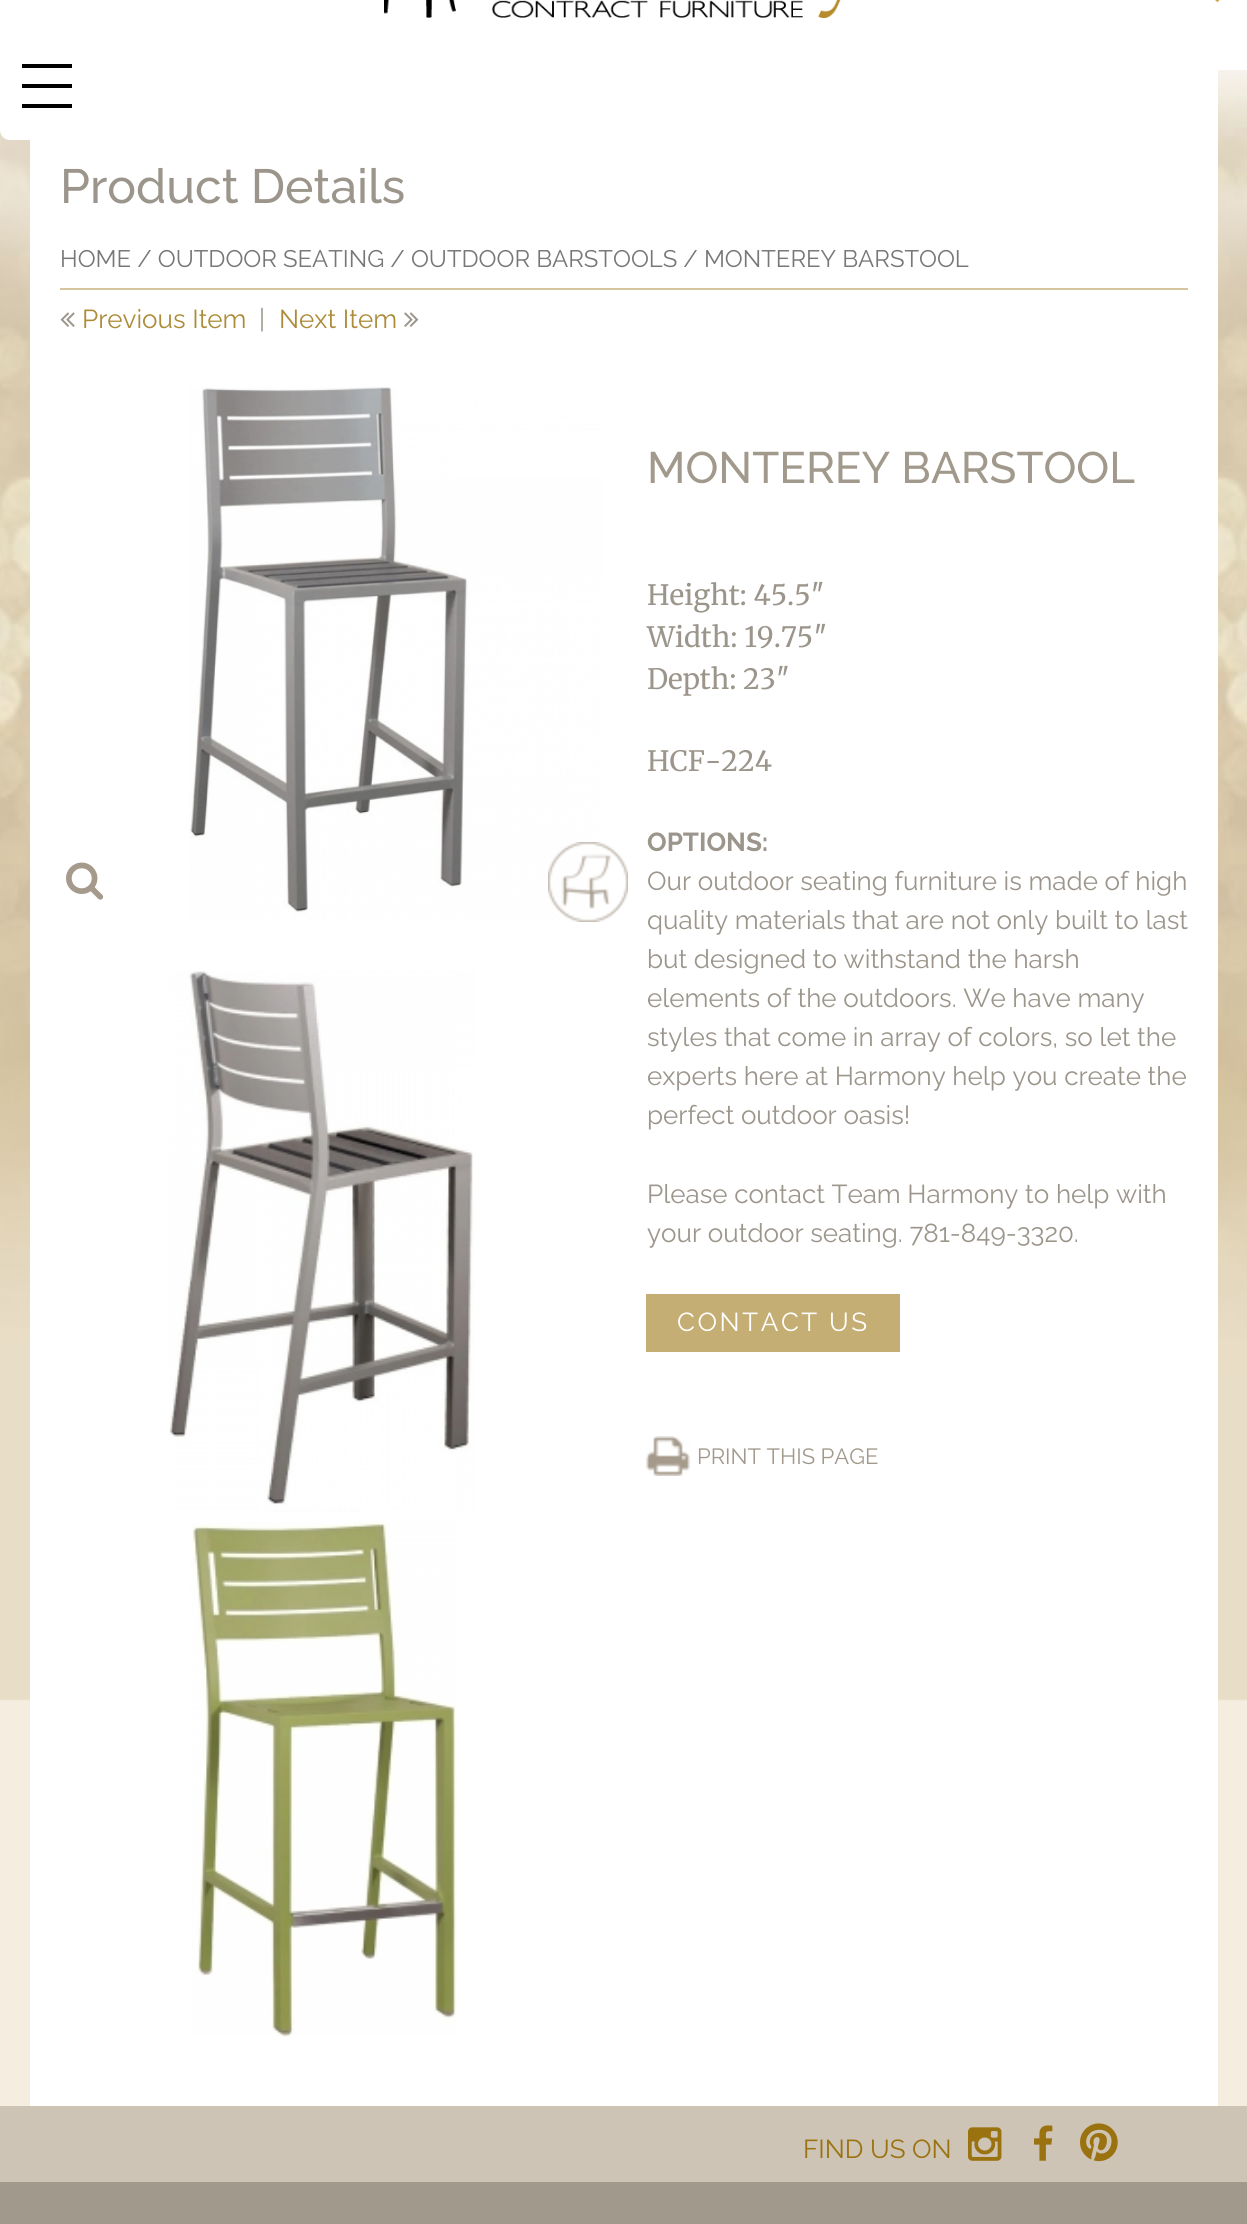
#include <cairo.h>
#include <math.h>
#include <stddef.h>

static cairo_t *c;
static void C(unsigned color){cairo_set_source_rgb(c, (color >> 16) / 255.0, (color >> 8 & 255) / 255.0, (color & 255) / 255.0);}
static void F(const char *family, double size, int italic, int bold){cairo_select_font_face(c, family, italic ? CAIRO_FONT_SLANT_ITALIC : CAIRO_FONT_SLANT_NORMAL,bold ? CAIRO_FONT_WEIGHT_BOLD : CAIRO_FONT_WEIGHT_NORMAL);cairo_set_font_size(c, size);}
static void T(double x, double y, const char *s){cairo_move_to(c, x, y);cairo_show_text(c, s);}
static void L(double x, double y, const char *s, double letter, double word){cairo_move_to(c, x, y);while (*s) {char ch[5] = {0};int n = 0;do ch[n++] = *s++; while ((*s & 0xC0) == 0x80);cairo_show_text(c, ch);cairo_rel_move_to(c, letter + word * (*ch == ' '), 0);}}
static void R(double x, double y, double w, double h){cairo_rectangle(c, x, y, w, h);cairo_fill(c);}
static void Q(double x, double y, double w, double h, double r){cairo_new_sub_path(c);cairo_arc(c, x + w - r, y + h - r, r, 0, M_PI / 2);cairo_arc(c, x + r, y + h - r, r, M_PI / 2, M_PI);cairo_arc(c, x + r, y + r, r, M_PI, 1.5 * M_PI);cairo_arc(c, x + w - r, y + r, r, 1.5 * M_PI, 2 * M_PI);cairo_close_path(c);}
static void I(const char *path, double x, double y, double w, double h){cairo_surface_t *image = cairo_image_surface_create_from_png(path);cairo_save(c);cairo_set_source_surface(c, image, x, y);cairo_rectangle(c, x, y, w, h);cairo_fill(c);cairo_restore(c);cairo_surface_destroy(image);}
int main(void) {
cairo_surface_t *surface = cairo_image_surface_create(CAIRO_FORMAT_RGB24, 1247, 2224);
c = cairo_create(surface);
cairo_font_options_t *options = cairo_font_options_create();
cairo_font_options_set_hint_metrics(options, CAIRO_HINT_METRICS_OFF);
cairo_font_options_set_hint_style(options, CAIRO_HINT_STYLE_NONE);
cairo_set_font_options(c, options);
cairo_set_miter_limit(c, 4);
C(0xf5eee0);
cairo_paint(c);
I("1.png",0,70,1247,1631);
C(0xffffff);
R(0,0,1247,70);
I("2.png",384,0,457,18);
I("3.png",1215,0,5,3);
R(30,70,1188,2036);
Q(0,30,92,110,10);
cairo_fill(c);
C(0x000000);
R(22,84,50,4);
R(22,64,50,4);
R(22,104,50,4);
F("Raleway Medium",48,0,0);
C(0x9b958b);
T(60,203,"Product Details");
C(0xd5c59c);
R(60,288,1128,2);
F("Raleway",23.9,0,0);
C(0x777777);
T(60,267,"HOME / OUTDOOR SEATING / OUTDOOR BARSTOOLS / MONTEREY BARSTOOL");
I("4.png",60,312,15,15);
F("Raleway",26,0,0);
C(0xac8b39);
T(82,328,"Previous Item");
C(0x9b958b);
T(259,328,"|");
C(0xac8b39);
T(279,328,"Next Item");
I("5.png",404,312,15,15);
I("6.png",189,387,413,533);
I("7.png",66,862,38,38);
I("8.png",548,842,80,80);
I("9.png",169,971,306,541);
I("10.png",191,1521,266,516);
F("Raleway Medium",44,0,0);
C(0xa1998b);
T(647,483,"MONTEREY BARSTOOL");
F("Merriweather Light",28,0,0);
C(0x9b958b);
T(647,605,"Height: 45.5″");
T(647,647,"Width: 19.75″");
T(647,689,"Depth: 23″");
T(647,771,"HCF-224");
F("Raleway",26,0,1);
T(647,851,"OPTIONS:");
F("Raleway",26,0,0);
T(647,890,"Our outdoor seating furniture is made of high");
T(647,929,"quality materials that are not only built to last");
T(647,968,"but designed to withstand the harsh");
T(647,1007,"elements of the outdoors. We have many");
T(647,1046,"styles that come in array of colors, so let the");
T(647,1085,"experts here at Harmony help you create the");
T(647,1124,"perfect outdoor oasis!");
T(647,1203,"Please contact Team Harmony to help with");
T(647,1242,"your outdoor seating. 781-849-3320.");
C(0xc5ae74);
R(646,1294,254,58);
C(0xffffff);
L(677,1331,"CONTACT US",2.6,0);
I("11.png",646,1436,44,40);
F("Raleway",22,0,0);
C(0xa1998b);
T(697,1464,"PRINT THIS PAGE");
C(0xcec4b5);
R(0,2106,1247,76);
F("Raleway",26,0,0);
C(0x9a720f);
T(803,2158,"FIND US ON");
I("12.png",968,2127,34,34);
I("13.png",1034,2125,19,36);
I("14.png",1080,2123,38,39);
C(0xa1998b);
R(0,2182,1247,42);
cairo_surface_write_to_png(surface, "o.png");
cairo_font_options_destroy(options);
cairo_destroy(c);
cairo_surface_destroy(surface);
return 0;
}
